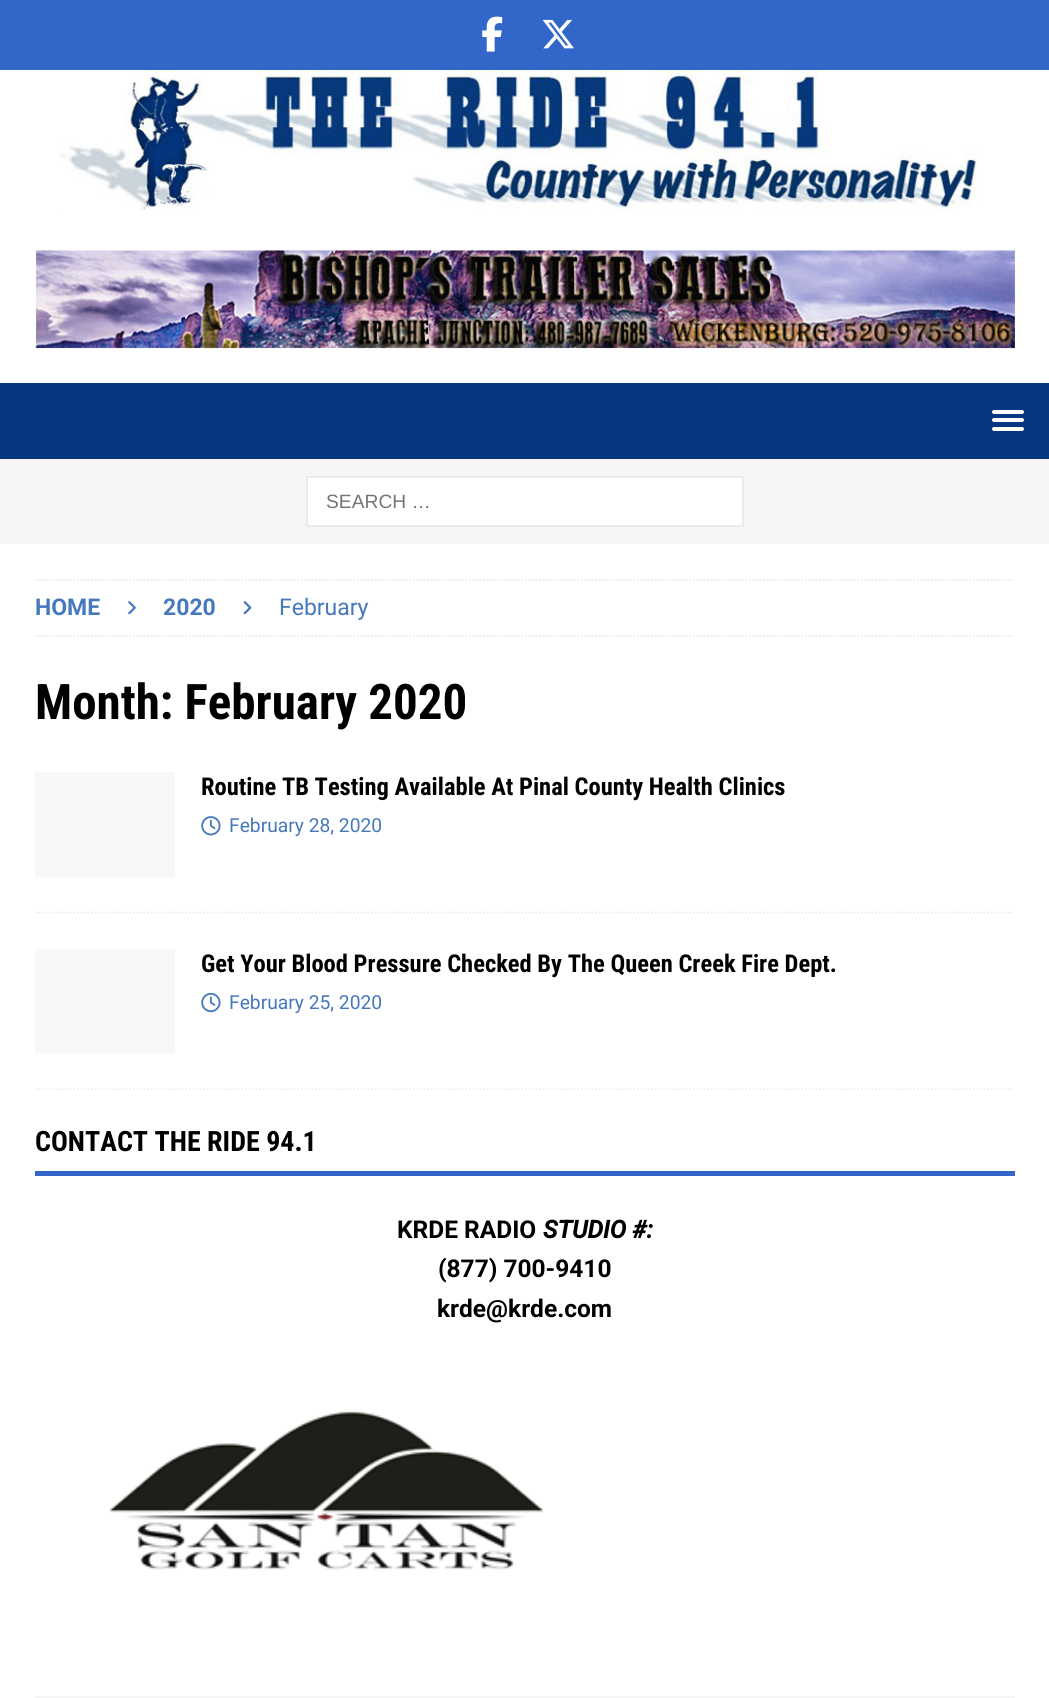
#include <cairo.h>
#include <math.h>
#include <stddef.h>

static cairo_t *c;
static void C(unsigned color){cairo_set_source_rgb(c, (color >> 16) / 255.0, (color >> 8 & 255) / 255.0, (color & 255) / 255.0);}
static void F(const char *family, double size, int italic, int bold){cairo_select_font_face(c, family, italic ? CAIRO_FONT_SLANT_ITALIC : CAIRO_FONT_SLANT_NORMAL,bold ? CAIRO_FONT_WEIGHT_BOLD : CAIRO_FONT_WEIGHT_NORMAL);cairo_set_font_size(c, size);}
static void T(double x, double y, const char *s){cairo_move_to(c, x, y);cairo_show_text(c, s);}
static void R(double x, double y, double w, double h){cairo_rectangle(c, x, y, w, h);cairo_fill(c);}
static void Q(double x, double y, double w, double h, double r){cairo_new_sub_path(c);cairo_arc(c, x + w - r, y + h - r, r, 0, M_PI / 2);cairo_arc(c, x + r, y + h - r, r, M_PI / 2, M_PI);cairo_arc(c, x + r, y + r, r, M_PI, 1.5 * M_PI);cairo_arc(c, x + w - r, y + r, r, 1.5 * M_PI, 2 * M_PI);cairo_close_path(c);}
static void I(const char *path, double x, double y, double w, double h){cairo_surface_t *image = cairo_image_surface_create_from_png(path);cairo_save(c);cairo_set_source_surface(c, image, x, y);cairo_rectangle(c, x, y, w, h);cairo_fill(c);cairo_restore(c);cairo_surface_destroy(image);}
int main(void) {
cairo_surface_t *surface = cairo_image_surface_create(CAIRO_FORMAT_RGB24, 1049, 1698);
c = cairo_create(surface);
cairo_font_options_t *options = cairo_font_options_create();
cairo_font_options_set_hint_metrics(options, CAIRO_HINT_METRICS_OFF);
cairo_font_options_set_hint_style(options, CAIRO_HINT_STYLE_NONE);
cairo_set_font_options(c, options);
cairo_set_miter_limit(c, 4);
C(0x3266c9);
cairo_paint(c);
I("1.png",482,16,21,36);
I("2.png",542,19,32,30);
C(0xffffff);
R(0,70,1049,313);
I("3.png",59,70,924,142);
I("4.png",35,250,980,99);
C(0x07377f);
R(0,383,1049,76);
C(0xffffff);
Q(992,410,32,4,2);
cairo_fill(c);
Q(992,418,32,4,2);
cairo_fill(c);
Q(992,427,32,4,2);
cairo_fill(c);
C(0xf5f5f5);
R(0,459,1049,85);
C(0xffffff);
cairo_rectangle(c,307,477,436,49);
cairo_fill_preserve(c);
C(0xebebeb);
cairo_stroke(c);
F("Liberation Sans",19.25,0,0);
C(0x757575);
T(326,508,"SEARCH …");
C(0xffffff);
R(0,544,1049,1154);
cairo_new_path(c);
cairo_move_to(c,35,580);
cairo_line_to(c,1015,580);
C(0xebebeb);
cairo_set_line_width(c,1.8);
cairo_set_dash(c,(double[]){1.75,1.75},2,0);
cairo_stroke(c);
cairo_new_path(c);
cairo_move_to(c,35,636);
cairo_line_to(c,1015,636);
cairo_stroke(c);
F("Roboto",23,0,1);
C(0x4678bc);
T(35,615,"HOME");
I("5.png",128,601,8,14);
T(163,615,"2020");
I("6.png",243,601,9,14);
F("Roboto",23,0,0);
T(279,615,"February");
F("Roboto Condensed",49,0,1);
C(0x000000);
T(35,719,"Month: February 2020");
cairo_new_path(c);
cairo_move_to(c,35,912.5);
cairo_line_to(c,1015,912.5);
C(0xebebeb);
cairo_stroke(c);
C(0xf7f7f7);
R(35,772,140,105);
F("Roboto Condensed",24.5,0,1);
C(0x000000);
T(201,795,"Routine TB Testing Available At Pinal County Health Clinics");
I("7.png",201,816,20,20);
F("Roboto",19.25,0,0);
C(0x4678bc);
T(229,832,"February 28, 2020");
cairo_save(c);
cairo_rectangle(c,35,579,980,511);
cairo_clip(c);
cairo_new_path(c);
cairo_move_to(c,35,1089.5);
cairo_line_to(c,1015,1089.5);
C(0xebebeb);
cairo_stroke(c);
cairo_restore(c);
C(0xf7f7f7);
R(35,949,140,104);
F("Roboto Condensed",24.5,0,1);
C(0x000000);
T(201,972,"Get Your Blood Pressure Checked By The Queen Creek Fire Dept.");
I("8.png",201,992,20,21);
F("Roboto",19.25,0,0);
C(0x4678bc);
T(229,1009,"February 25, 2020");
C(0x3266c9);
R(35,1171,980,5);
F("Roboto Condensed",28,0,1);
C(0x000000);
T(35,1151,"CONTACT THE RIDE 94.1");
F("Roboto",24.5,0,1);
T(397,1238,"KRDE RADIO");
F("Roboto",24.5,1,1);
T(543,1238,"STUDIO #:");
F("Roboto",24.5,0,1);
T(438,1277,"(877) 700-9410");
T(437,1317,"krde@krde.com");
I("9.png",109,1411,434,159);
C(0xf5f5f5);
R(35,1696,980,2);
cairo_surface_write_to_png(surface, "o.png");
cairo_font_options_destroy(options);
cairo_destroy(c);
cairo_surface_destroy(surface);
return 0;
}
